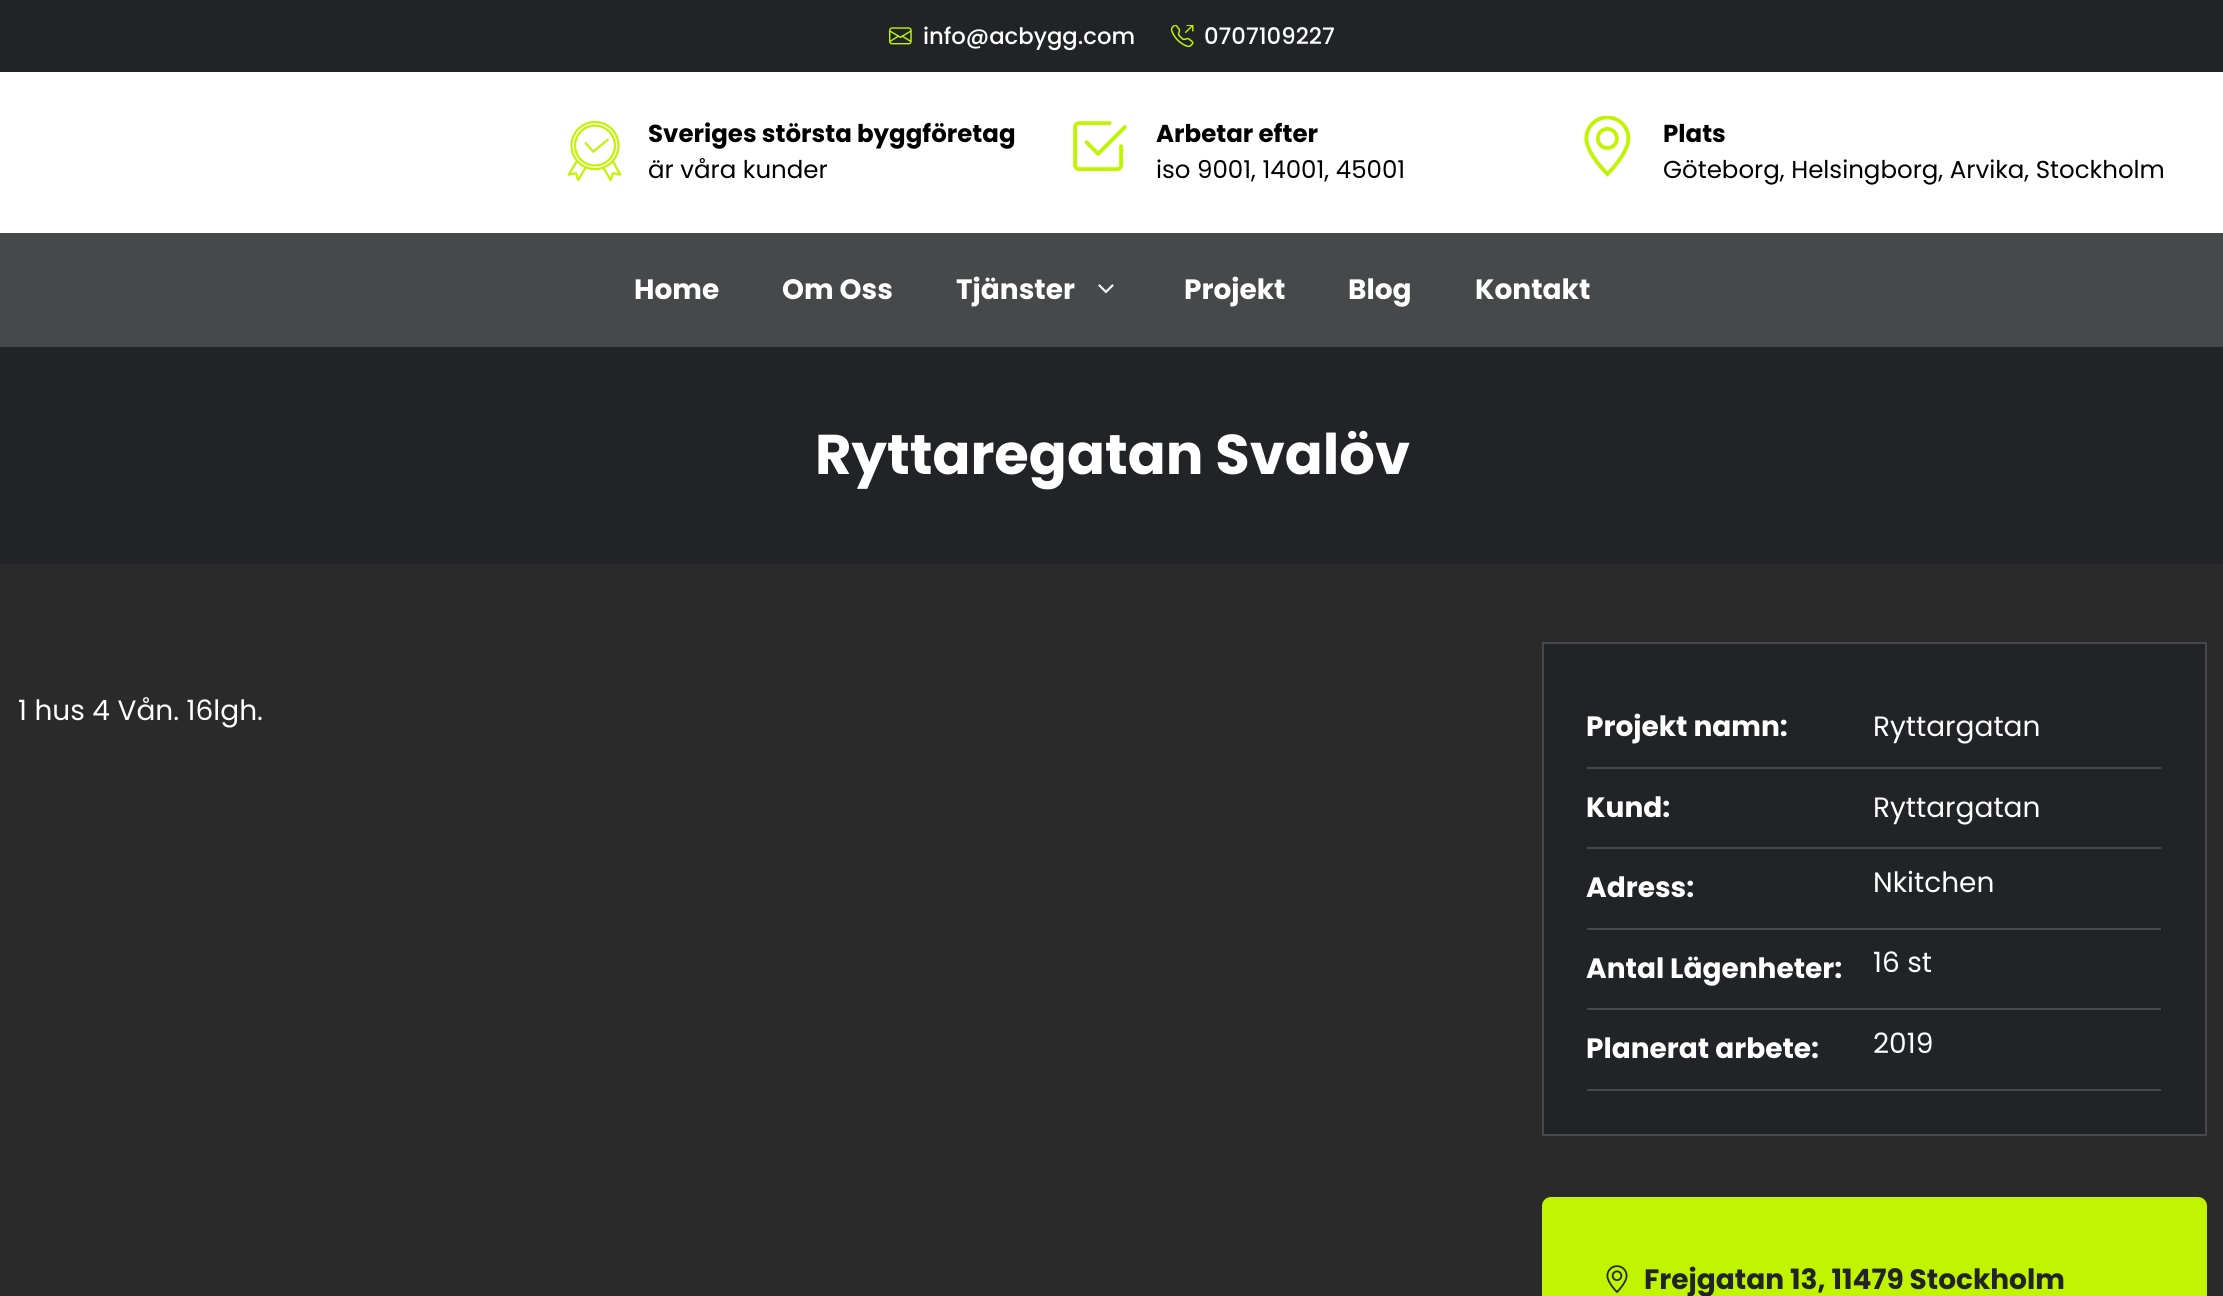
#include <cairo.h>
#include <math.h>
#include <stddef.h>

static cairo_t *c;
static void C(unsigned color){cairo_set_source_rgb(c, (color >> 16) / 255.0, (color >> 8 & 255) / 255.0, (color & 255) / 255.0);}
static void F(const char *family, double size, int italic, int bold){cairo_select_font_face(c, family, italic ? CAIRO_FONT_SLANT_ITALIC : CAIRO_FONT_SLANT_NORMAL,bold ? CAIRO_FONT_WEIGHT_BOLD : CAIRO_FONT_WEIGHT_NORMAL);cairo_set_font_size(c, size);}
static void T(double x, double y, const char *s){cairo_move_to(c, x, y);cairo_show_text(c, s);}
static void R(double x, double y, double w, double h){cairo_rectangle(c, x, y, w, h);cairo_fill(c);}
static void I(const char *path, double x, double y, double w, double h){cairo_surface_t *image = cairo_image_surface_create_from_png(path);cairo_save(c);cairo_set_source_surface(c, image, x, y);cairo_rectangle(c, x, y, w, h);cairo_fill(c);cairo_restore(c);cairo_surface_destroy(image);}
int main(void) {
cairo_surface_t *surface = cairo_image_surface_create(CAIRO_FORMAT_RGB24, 2223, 1296);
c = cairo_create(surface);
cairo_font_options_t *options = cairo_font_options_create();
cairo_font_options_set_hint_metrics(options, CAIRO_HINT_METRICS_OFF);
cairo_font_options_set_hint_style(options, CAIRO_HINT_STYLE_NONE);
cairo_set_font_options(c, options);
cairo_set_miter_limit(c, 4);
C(0x212326);
cairo_paint(c);
I("1.png",889,27,23,18);
F("Poppins Medium",22.75,0,0);
C(0xffffff);
T(923,44,"info@acbygg.com");
I("2.png",1171,25,23,22);
T(1204,44,"0707109227");
R(0,72,2223,161);
I("3.png",567,121,55,61);
F("Poppins",24.5,0,1);
C(0x000000);
T(648,142,"Sveriges största byggföretag");
F("Poppins",24.5,0,0);
T(648,178,"är våra kunder");
I("4.png",1073,121,54,50);
F("Poppins",24.5,0,1);
T(1156,142,"Arbetar efter");
F("Poppins",24.5,0,0);
T(1156,178,"iso 9001, 14001, 45001");
I("5.png",1584,116,47,61);
F("Poppins",24.5,0,1);
T(1663,142,"Plats");
F("Poppins",24.5,0,0);
T(1663,178,"Göteborg, Helsingborg, Arvika, Stockholm");
C(0x46484a);
R(0,233,2223,114);
F("Poppins",28,0,1);
C(0xffffff);
T(634,299,"Home");
T(782,299,"Om Oss");
T(956,299,"Tjänster");
I("6.png",1098,284,16,10);
T(1184,299,"Projekt");
T(1348,299,"Blog");
T(1475,299,"Kontakt");
F("Poppins",56,0,1);
T(815,474,"Ryttaregatan Svalöv");
C(0x2a2a2a);
R(0,564,2223,732);
F("Poppins",28,0,0);
C(0xffffff);
T(18,720,"1 hus 4 Vån. 16lgh.");
C(0x212326);
cairo_rectangle(c,1543,643,663,492);
cairo_fill_preserve(c);
C(0x47484b);
cairo_stroke(c);
R(1587,767,574,2);
F("Poppins",28,0,1);
C(0xffffff);
T(1586,736,"Projekt namn:");
F("Poppins",28,0,0);
T(1873,736,"Ryttargatan");
C(0x47484b);
R(1587,847,574,2);
F("Poppins",28,0,1);
C(0xffffff);
T(1586,817,"Kund:");
F("Poppins",28,0,0);
T(1873,817,"Ryttargatan");
C(0x47484b);
R(1587,928,574,2);
F("Poppins",28,0,1);
C(0xffffff);
T(1586,897,"Adress:");
F("Poppins",28,0,0);
T(1873,892,"Nkitchen");
C(0x47484b);
R(1587,1008,574,2);
F("Poppins",28,0,1);
C(0xffffff);
T(1586,978,"Antal Lägenheter:");
F("Poppins",28,0,0);
T(1873,972,"16 st");
C(0x47484b);
R(1587,1089,574,2);
F("Poppins",28,0,1);
C(0xffffff);
T(1586,1058,"Planerat arbete:");
F("Poppins",28,0,0);
T(1873,1053,"2019");
C(0xc0f400);
cairo_new_path(c);
cairo_move_to(c,1551,1197);
cairo_line_to(c,2198,1197);
cairo_curve_to(c,2203,1197,2207,1201,2207,1206);
cairo_line_to(c,2207,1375);
cairo_curve_to(c,2207,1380,2203,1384,2198,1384);
cairo_line_to(c,1630,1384);
cairo_curve_to(c,1581.5,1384,1542,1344.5,1542,1296);
cairo_line_to(c,1542,1206);
cairo_curve_to(c,1542,1201,1546,1197,1551,1197);
cairo_close_path(c);
cairo_fill(c);
I("7.png",1606,1265,22,28);
F("Poppins",28,0,1);
C(0x212326);
T(1644,1289,"Frejgatan 13, 11479 Stockholm");
cairo_surface_write_to_png(surface, "o.png");
cairo_font_options_destroy(options);
cairo_destroy(c);
cairo_surface_destroy(surface);
return 0;
}
